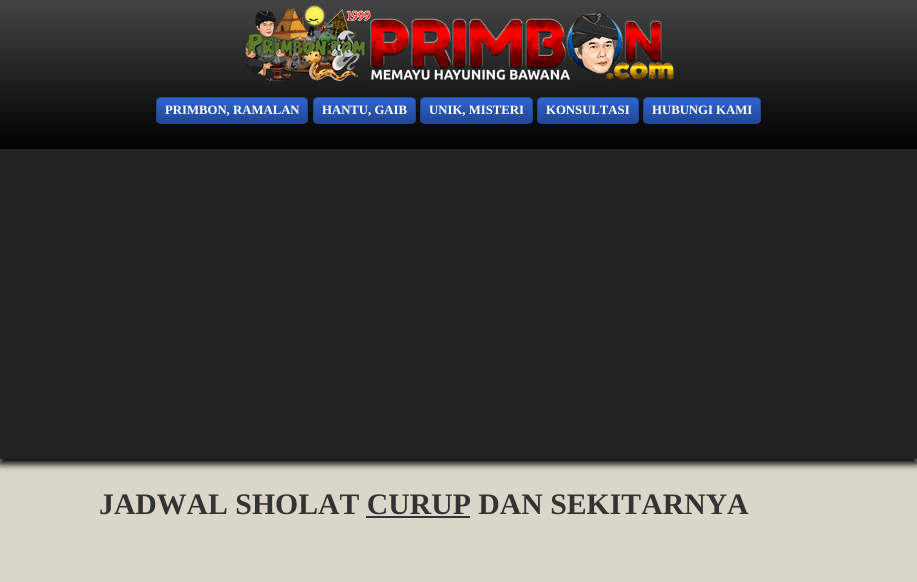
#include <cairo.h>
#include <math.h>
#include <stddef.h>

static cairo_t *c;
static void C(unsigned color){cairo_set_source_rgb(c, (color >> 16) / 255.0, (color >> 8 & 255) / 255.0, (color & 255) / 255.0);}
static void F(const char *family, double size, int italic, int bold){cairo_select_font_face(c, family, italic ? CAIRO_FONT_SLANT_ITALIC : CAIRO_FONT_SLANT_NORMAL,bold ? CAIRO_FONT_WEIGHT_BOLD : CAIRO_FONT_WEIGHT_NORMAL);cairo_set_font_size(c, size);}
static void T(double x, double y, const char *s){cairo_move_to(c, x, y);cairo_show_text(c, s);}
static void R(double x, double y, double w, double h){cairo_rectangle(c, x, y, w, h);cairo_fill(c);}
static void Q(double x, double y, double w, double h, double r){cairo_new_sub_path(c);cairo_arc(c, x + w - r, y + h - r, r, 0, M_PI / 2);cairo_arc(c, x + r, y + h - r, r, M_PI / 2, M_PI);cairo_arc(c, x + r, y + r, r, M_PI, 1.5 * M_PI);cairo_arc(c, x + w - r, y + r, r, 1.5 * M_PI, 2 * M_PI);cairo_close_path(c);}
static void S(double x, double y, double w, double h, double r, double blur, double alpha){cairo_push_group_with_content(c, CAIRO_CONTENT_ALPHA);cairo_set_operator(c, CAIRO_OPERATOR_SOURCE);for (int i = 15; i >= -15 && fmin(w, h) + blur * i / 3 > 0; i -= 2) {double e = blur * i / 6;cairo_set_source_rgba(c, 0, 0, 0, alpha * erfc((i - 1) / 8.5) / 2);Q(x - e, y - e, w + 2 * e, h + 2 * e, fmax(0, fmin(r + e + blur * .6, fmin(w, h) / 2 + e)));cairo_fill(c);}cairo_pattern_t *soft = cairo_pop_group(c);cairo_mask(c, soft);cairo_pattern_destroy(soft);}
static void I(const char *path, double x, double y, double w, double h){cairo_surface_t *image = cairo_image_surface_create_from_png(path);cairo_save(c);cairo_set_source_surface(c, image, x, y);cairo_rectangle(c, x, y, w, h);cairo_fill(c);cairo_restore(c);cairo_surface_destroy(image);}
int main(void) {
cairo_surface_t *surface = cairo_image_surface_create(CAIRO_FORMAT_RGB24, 917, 582);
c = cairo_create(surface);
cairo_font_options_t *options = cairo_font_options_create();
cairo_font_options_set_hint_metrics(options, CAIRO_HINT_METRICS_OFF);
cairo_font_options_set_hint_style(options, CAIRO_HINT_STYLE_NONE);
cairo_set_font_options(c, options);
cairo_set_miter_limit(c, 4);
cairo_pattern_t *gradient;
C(0xdad6ca);
cairo_paint(c);
gradient = cairo_pattern_create_linear(459,0,459,149);
cairo_pattern_add_color_stop_rgba(gradient,0,0.267,0.267,0.267,1);
cairo_pattern_add_color_stop_rgba(gradient,1,0,0,0,1);
cairo_set_source(c,gradient);
cairo_pattern_destroy(gradient);
R(0,0,917,149);
I("1.png",244,5,430,77);
cairo_save(c);
Q(156,97,152,27,5);
cairo_clip(c);
gradient = cairo_pattern_create_linear(232,98,232,123);
cairo_pattern_add_color_stop_rgba(gradient,0,0.184,0.396,0.816,1);
cairo_pattern_add_color_stop_rgba(gradient,1,0.129,0.278,0.569,1);
cairo_set_source(c,gradient);
cairo_pattern_destroy(gradient);
R(156,98,152,25);
cairo_restore(c);
Q(156.5,97.5,151,26,4.5);
C(0x214791);
cairo_set_line_width(c,1);
cairo_stroke(c);
F("Liberation Serif",12.75,0,1);
C(0xffffff);
T(165,114,"PRIMBON, RAMALAN");
cairo_save(c);
Q(313,97,103,27,5);
cairo_clip(c);
gradient = cairo_pattern_create_linear(365,98,365,123);
cairo_pattern_add_color_stop_rgba(gradient,0,0.184,0.396,0.816,1);
cairo_pattern_add_color_stop_rgba(gradient,1,0.129,0.278,0.569,1);
cairo_set_source(c,gradient);
cairo_pattern_destroy(gradient);
R(313,98,103,25);
cairo_restore(c);
Q(313.5,97.5,102,26,4.5);
C(0x214791);
cairo_stroke(c);
C(0xffffff);
T(322,114,"HANTU, GAIB");
cairo_save(c);
Q(420,97,113,27,5);
cairo_clip(c);
gradient = cairo_pattern_create_linear(477,98,477,123);
cairo_pattern_add_color_stop_rgba(gradient,0,0.184,0.396,0.816,1);
cairo_pattern_add_color_stop_rgba(gradient,1,0.129,0.278,0.569,1);
cairo_set_source(c,gradient);
cairo_pattern_destroy(gradient);
R(420,98,113,25);
cairo_restore(c);
Q(420.5,97.5,112,26,4.5);
C(0x214791);
cairo_stroke(c);
C(0xffffff);
T(429,114,"UNIK, MISTERI");
cairo_save(c);
Q(537,97,102,27,5);
cairo_clip(c);
gradient = cairo_pattern_create_linear(588,98,588,123);
cairo_pattern_add_color_stop_rgba(gradient,0,0.184,0.396,0.816,1);
cairo_pattern_add_color_stop_rgba(gradient,1,0.129,0.278,0.569,1);
cairo_set_source(c,gradient);
cairo_pattern_destroy(gradient);
R(537,98,102,25);
cairo_restore(c);
Q(537.5,97.5,101,26,4.5);
C(0x214791);
cairo_stroke(c);
C(0xffffff);
T(546,114,"KONSULTASI");
cairo_save(c);
Q(643,97,118,27,5);
cairo_clip(c);
gradient = cairo_pattern_create_linear(702,98,702,123);
cairo_pattern_add_color_stop_rgba(gradient,0,0.184,0.396,0.816,1);
cairo_pattern_add_color_stop_rgba(gradient,1,0.129,0.278,0.569,1);
cairo_set_source(c,gradient);
cairo_pattern_destroy(gradient);
R(643,98,118,25);
cairo_restore(c);
Q(643.5,97.5,117,26,4.5);
C(0x214791);
cairo_stroke(c);
C(0xffffff);
T(652,114,"HUBUNGI KAMI");
C(0x000000);
S(0,154,917,310,0,3.5,1);
C(0x222222);
R(0,149,917,310);
F("Liberation Serif",29.75,0,1);
C(0x333333);
T(99,514,"JADWAL SHOLAT CURUP DAN SEKITARNYA");
R(366,516,104,2);
cairo_surface_write_to_png(surface, "o.png");
cairo_font_options_destroy(options);
cairo_destroy(c);
cairo_surface_destroy(surface);
return 0;
}
